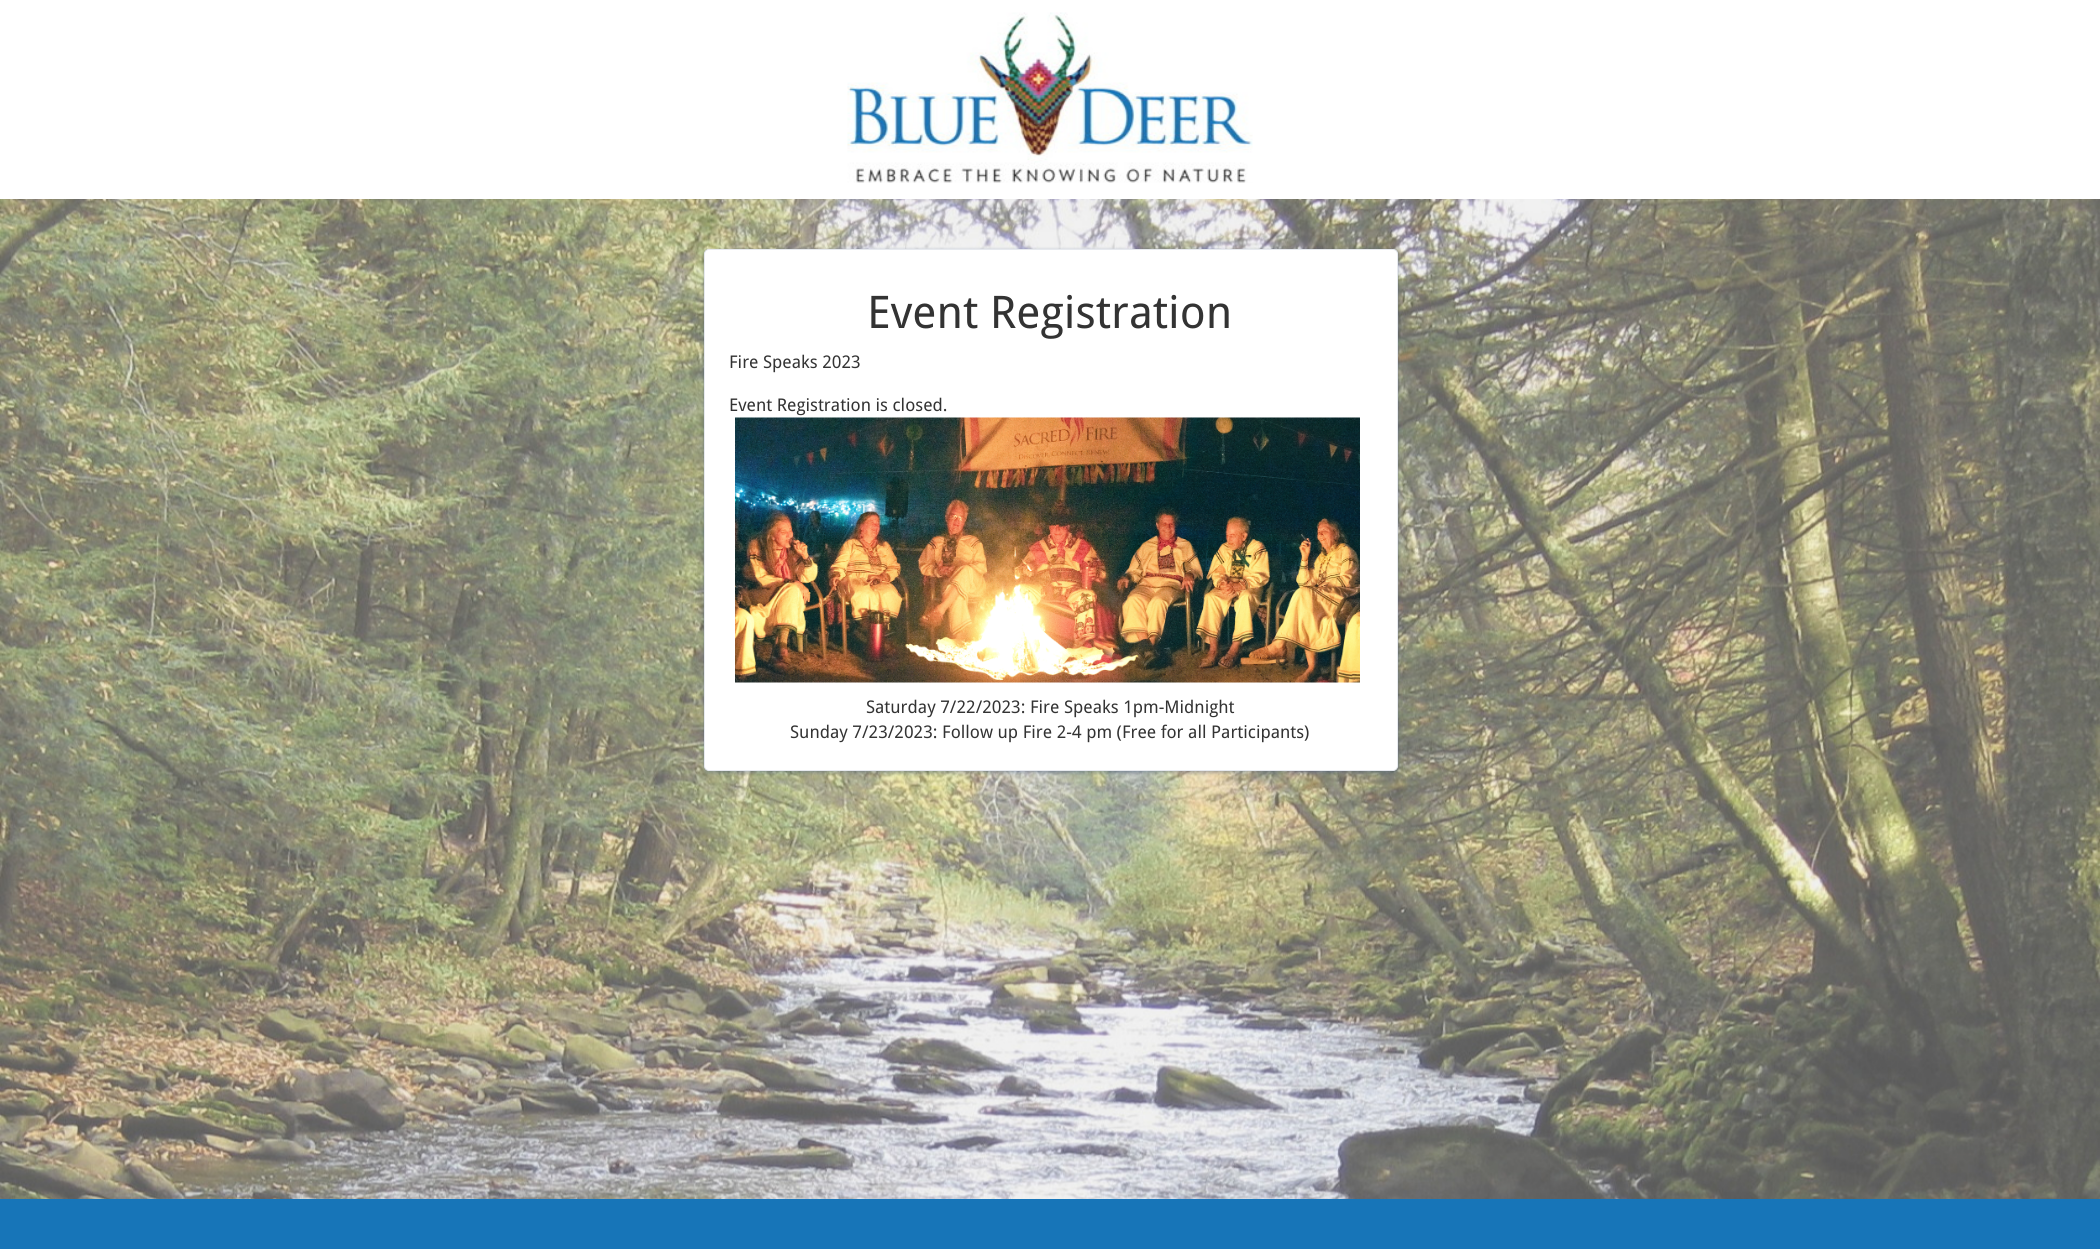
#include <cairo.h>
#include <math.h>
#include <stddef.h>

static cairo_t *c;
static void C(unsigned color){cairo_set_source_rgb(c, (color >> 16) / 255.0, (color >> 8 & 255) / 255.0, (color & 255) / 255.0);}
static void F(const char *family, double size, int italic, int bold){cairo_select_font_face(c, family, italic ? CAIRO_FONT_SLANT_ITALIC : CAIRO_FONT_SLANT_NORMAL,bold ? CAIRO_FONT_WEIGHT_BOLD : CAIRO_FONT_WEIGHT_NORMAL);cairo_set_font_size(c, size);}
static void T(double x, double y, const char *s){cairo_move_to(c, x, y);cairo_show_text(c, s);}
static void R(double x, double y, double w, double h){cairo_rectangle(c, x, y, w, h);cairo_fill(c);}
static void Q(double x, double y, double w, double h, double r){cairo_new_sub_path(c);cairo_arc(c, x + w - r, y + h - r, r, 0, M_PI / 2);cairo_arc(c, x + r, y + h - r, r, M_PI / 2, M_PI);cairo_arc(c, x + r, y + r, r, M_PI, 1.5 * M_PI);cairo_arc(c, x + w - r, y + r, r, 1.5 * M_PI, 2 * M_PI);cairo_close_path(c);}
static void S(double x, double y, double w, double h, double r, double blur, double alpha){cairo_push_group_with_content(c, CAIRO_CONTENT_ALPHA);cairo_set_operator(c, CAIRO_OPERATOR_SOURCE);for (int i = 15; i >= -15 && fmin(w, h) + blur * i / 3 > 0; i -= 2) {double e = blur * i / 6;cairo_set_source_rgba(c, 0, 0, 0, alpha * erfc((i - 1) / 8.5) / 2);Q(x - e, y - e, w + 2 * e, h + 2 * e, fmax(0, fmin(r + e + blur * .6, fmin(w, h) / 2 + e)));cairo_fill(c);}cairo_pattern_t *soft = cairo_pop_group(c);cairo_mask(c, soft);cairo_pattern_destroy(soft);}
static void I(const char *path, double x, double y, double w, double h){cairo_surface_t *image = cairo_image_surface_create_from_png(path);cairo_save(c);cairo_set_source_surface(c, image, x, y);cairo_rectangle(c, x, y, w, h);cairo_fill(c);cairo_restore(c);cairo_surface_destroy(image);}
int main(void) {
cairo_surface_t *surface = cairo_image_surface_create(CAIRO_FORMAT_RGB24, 2100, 1249);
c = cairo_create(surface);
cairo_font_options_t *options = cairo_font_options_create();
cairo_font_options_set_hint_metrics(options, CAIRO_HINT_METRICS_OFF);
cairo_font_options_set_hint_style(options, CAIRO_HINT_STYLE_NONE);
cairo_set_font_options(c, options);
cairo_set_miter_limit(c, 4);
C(0xffffff);
cairo_paint(c);
I("1.png",0,199,2100,1000);
I("2.png",847,12,406,171);
C(0x2f4975);
S(704,250,694,523,5,2,.2);
S(704,251,694,523,5,1,.12);
S(704,249,694,522,5,1,.14);
C(0xffffff);
Q(704.5,249.5,693,521,4.5);
cairo_fill_preserve(c);
C(0xe6e9ee);
cairo_set_line_width(c,1);
cairo_stroke(c);
F("Droid Sans",45,0,0);
C(0x333333);
T(867,328,"Event Registration");
F("Droid Sans",17.5,0,0);
T(729,368,"Fire Speaks 2023");
T(729,411,"Event Registration is closed.");
I("3.png",735,417,625,266);
T(866,713,"Saturday 7/22/2023: Fire Speaks 1pm-Midnight");
T(790,738,"Sunday 7/23/2023: Follow up Fire 2-4 pm (Free for all Participants)");
C(0x1775b8);
R(0,1199,2100,50);
cairo_surface_write_to_png(surface, "o.png");
cairo_font_options_destroy(options);
cairo_destroy(c);
cairo_surface_destroy(surface);
return 0;
}
